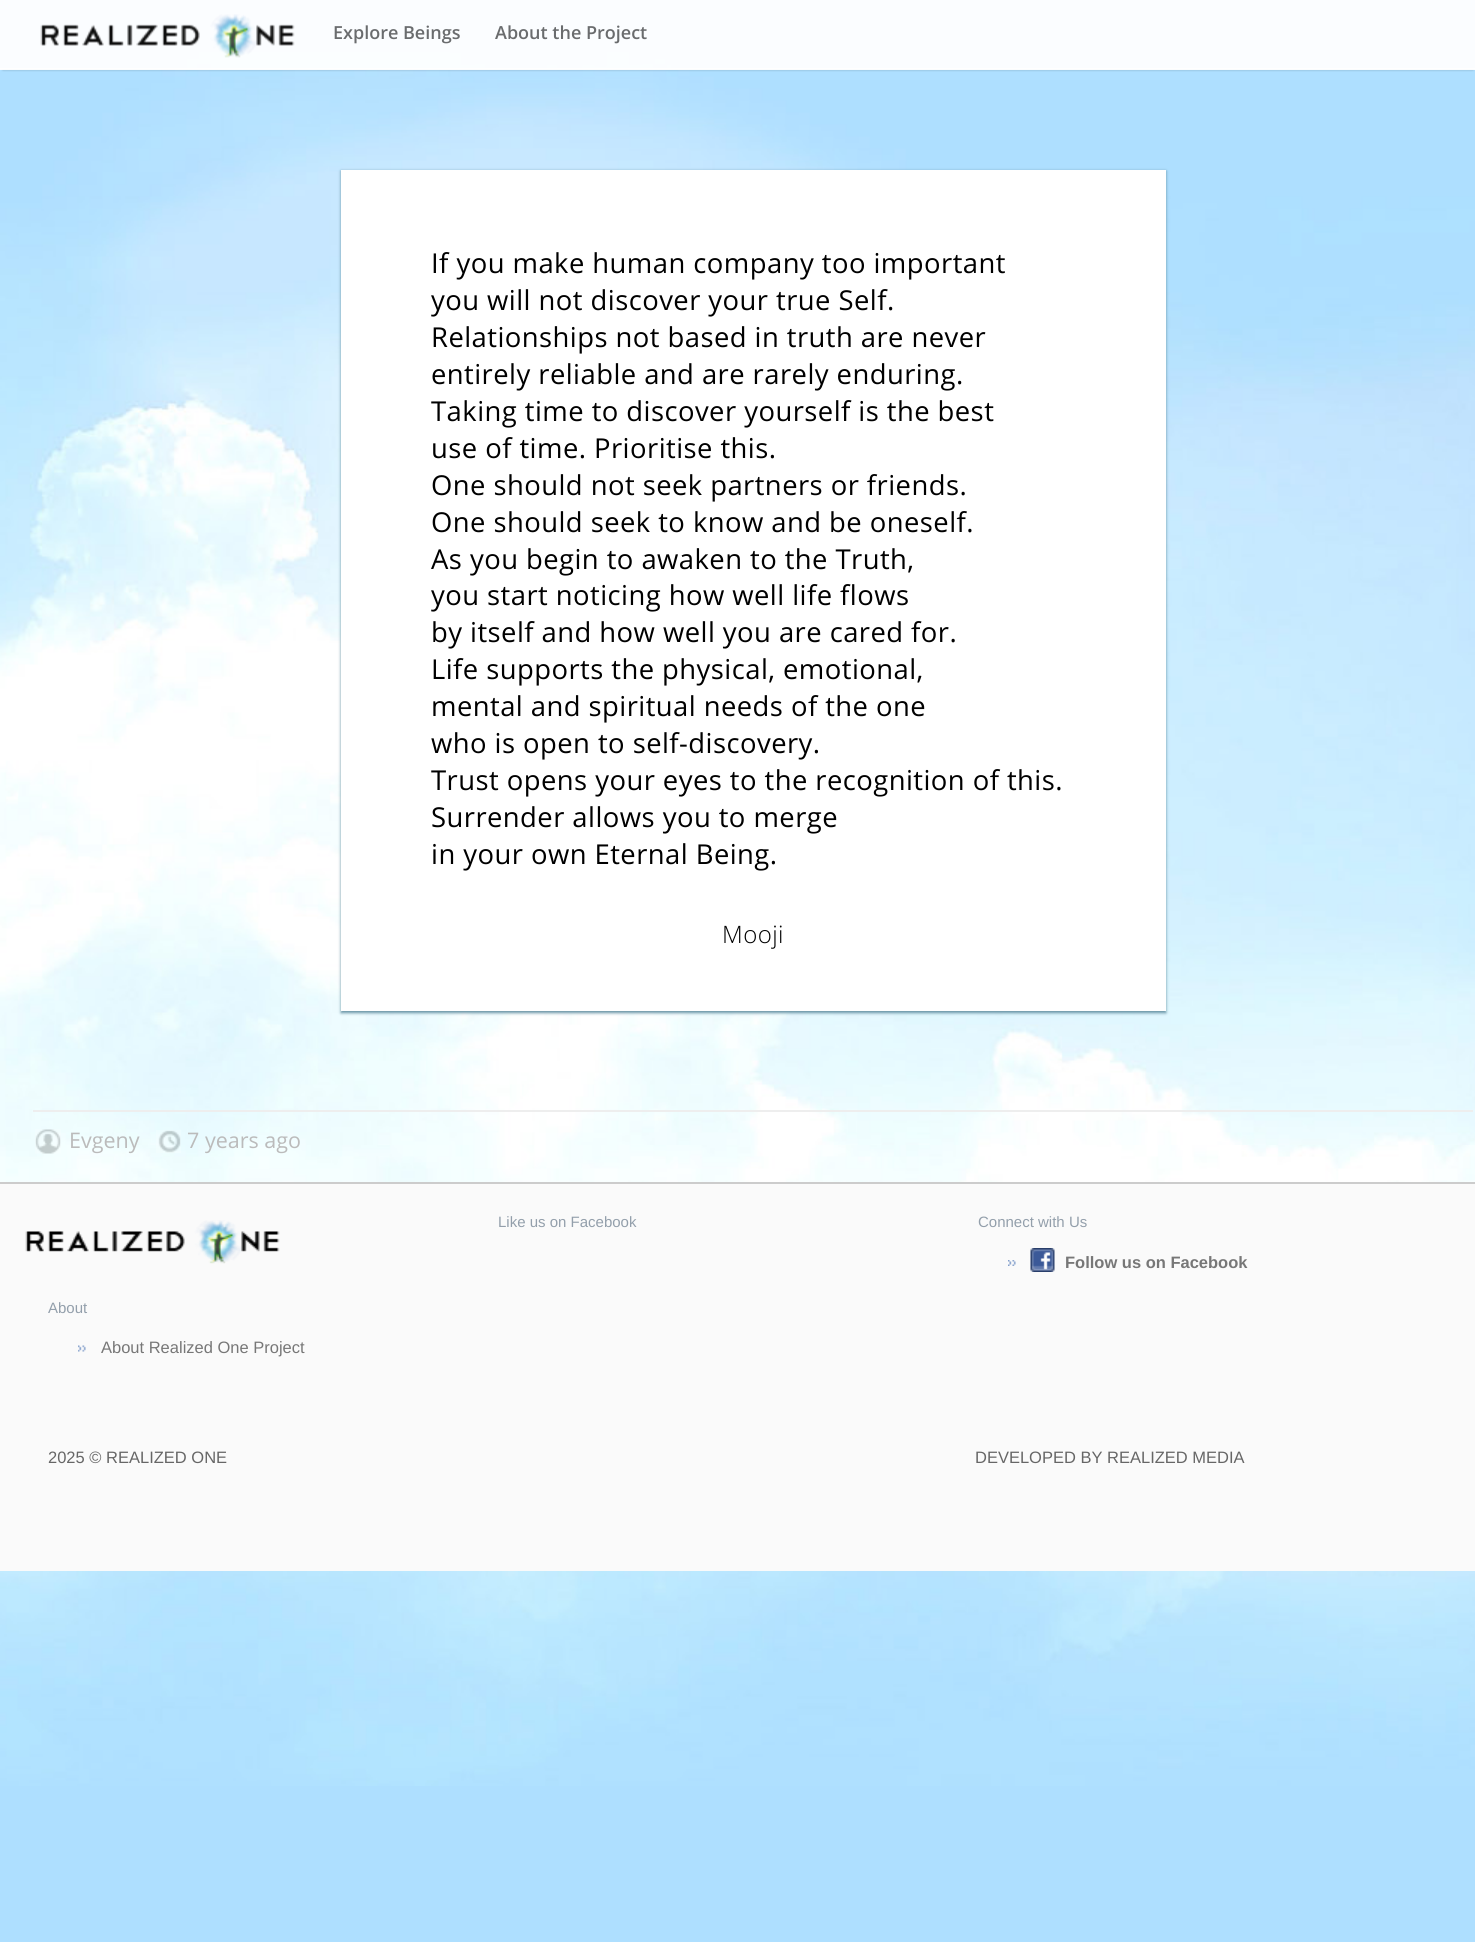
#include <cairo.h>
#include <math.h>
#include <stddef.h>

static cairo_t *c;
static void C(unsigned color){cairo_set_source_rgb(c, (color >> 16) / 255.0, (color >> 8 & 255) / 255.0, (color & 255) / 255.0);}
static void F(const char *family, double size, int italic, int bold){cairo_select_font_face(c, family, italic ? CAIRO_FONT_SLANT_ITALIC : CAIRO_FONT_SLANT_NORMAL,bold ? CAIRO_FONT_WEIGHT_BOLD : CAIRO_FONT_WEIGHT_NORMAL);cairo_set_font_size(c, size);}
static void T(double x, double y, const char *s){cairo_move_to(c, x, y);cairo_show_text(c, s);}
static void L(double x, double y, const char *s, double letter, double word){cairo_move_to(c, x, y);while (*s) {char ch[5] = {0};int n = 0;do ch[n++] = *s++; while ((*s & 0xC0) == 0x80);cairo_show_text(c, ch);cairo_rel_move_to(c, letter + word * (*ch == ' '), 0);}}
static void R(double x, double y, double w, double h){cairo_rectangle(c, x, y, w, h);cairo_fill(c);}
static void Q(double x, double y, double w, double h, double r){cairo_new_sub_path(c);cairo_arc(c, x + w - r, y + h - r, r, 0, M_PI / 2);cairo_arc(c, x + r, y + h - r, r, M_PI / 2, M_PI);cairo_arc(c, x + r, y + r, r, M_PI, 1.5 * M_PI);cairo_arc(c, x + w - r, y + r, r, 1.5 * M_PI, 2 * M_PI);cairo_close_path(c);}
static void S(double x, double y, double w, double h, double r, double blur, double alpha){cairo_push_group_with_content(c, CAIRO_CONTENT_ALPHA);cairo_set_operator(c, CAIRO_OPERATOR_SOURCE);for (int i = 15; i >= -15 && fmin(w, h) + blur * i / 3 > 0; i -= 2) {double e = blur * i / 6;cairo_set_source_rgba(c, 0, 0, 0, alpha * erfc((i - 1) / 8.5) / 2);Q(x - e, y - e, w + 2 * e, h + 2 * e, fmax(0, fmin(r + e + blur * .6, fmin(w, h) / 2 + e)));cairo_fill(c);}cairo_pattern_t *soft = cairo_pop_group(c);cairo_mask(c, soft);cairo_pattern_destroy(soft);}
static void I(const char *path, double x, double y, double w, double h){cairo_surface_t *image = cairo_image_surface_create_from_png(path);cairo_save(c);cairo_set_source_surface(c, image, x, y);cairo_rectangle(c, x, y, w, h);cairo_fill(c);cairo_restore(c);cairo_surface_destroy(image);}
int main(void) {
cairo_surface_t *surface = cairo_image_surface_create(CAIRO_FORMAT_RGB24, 1475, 1942);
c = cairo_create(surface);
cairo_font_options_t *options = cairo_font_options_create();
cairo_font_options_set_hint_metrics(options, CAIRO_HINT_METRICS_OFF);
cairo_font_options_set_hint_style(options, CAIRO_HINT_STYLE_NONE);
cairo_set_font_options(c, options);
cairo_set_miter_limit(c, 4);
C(0xaedfff);
cairo_paint(c);
I("1.png",0,52,1475,1734);
cairo_save(c);
cairo_rectangle(c,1,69,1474,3);
cairo_clip(c);
C(0x000000);
S(3,6,1470,63,0,1.5,.49);
cairo_restore(c);
cairo_set_source_rgba(c,1,1,1,0.95);
R(0,0,1475,69);
R(0,68,1475,2);
I("2.png",40,14,255,44);
F("Open Sans SemiBold",18,0,0);
C(0x6a6c6e);
T(333,39,"Explore Beings");
T(495,39,"About the Project");
C(0x6591a3);
S(341,171,825,842,0,1.5,1);
C(0xffffff);
R(341,170,825,841);
F("Open Sans",27.4,0,0);
C(0x000000);
L(431,273,"If you make human company too important",.45,0);
L(431,310,"you will not discover your true Self.",.45,0);
L(431,347,"Relationships not based in truth are never",.45,0);
L(431,384,"entirely reliable and are rarely enduring.",.45,0);
L(431,421,"Taking time to discover yourself is the best",.45,0);
L(431,458,"use of time. Prioritise this.",.45,0);
L(431,495,"One should not seek partners or friends.",.45,0);
L(431,532,"One should seek to know and be oneself.",.45,0);
L(431,569,"As you begin to awaken to the Truth,",.45,0);
L(431,605,"you start noticing how well life flows",.45,0);
L(431,642,"by itself and how well you are cared for.",.45,0);
L(431,679,"Life supports the physical, emotional,",.45,0);
L(431,716,"mental and spiritual needs of the one",.45,0);
L(431,753,"who is open to self-discovery.",.45,0);
L(431,790,"Trust opens your eyes to the recognition of this.",.45,0);
L(431,827,"Surrender allows you to merge",.45,0);
L(431,864,"in your own Eternal Being.",.45,0);
F("Open Sans Light",24,0,0);
L(722,943,"Mooji",.45,0);
C(0xeeeeee);
R(33,1110,1440,2);
I("3.png",35,1129,26,25);
F("Open Sans",21.5,0,0);
C(0xbbbbbb);
T(69,1148,"Evgeny");
I("4.png",156,1130,25,23);
T(187,1148,"7 years ago");
C(0xfafafa);
R(0,1184,1475,387);
C(0xcccccc);
R(0,1182,1475,2);
F("Liberation Sans",15,0,0);
C(0x939fab);
T(498,1227,"Like us on Facebook");
T(978,1227,"Connect with Us");
I("5.png",1008,1260,8,6);
I("6.png",1030,1248,25,24);
F("Liberation Sans",16.5,0,1);
C(0x777777);
T(1065,1268,"Follow us on Facebook");
I("7.png",25,1220,255,44);
F("Liberation Sans",15,0,0);
C(0x939fab);
T(48,1313,"About");
I("8.png",78,1345,8,7);
F("Liberation Sans",16.5,0,0);
C(0x777777);
T(101,1353,"About Realized One Project");
C(0x666666);
T(48,1463,"2025 © REALIZED ONE");
T(975,1463,"DEVELOPED BY REALIZED MEDIA");
cairo_surface_write_to_png(surface, "o.png");
cairo_font_options_destroy(options);
cairo_destroy(c);
cairo_surface_destroy(surface);
return 0;
}
